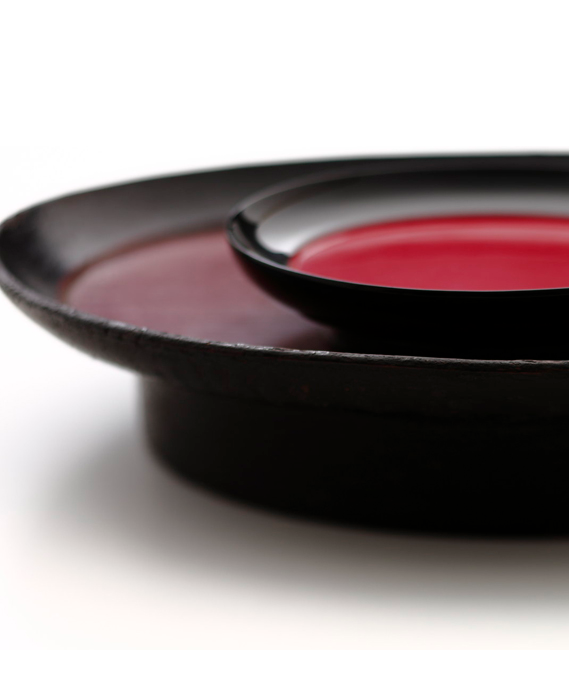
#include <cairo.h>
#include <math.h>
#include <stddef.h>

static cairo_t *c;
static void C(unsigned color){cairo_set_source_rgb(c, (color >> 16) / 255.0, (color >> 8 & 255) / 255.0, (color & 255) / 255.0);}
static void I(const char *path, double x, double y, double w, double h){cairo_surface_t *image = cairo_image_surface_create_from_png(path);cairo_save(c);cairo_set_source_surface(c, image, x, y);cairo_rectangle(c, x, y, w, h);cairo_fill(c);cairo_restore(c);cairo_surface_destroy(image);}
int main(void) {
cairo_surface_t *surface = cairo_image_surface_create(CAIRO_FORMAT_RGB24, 569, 684);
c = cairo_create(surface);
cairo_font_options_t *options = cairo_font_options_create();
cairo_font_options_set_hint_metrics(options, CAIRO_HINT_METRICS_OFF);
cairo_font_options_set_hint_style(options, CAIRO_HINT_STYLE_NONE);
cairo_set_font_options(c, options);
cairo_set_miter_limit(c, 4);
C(0xffffff);
cairo_paint(c);
I("1.png",0,146,569,504);
cairo_surface_write_to_png(surface, "o.png");
cairo_font_options_destroy(options);
cairo_destroy(c);
cairo_surface_destroy(surface);
return 0;
}
